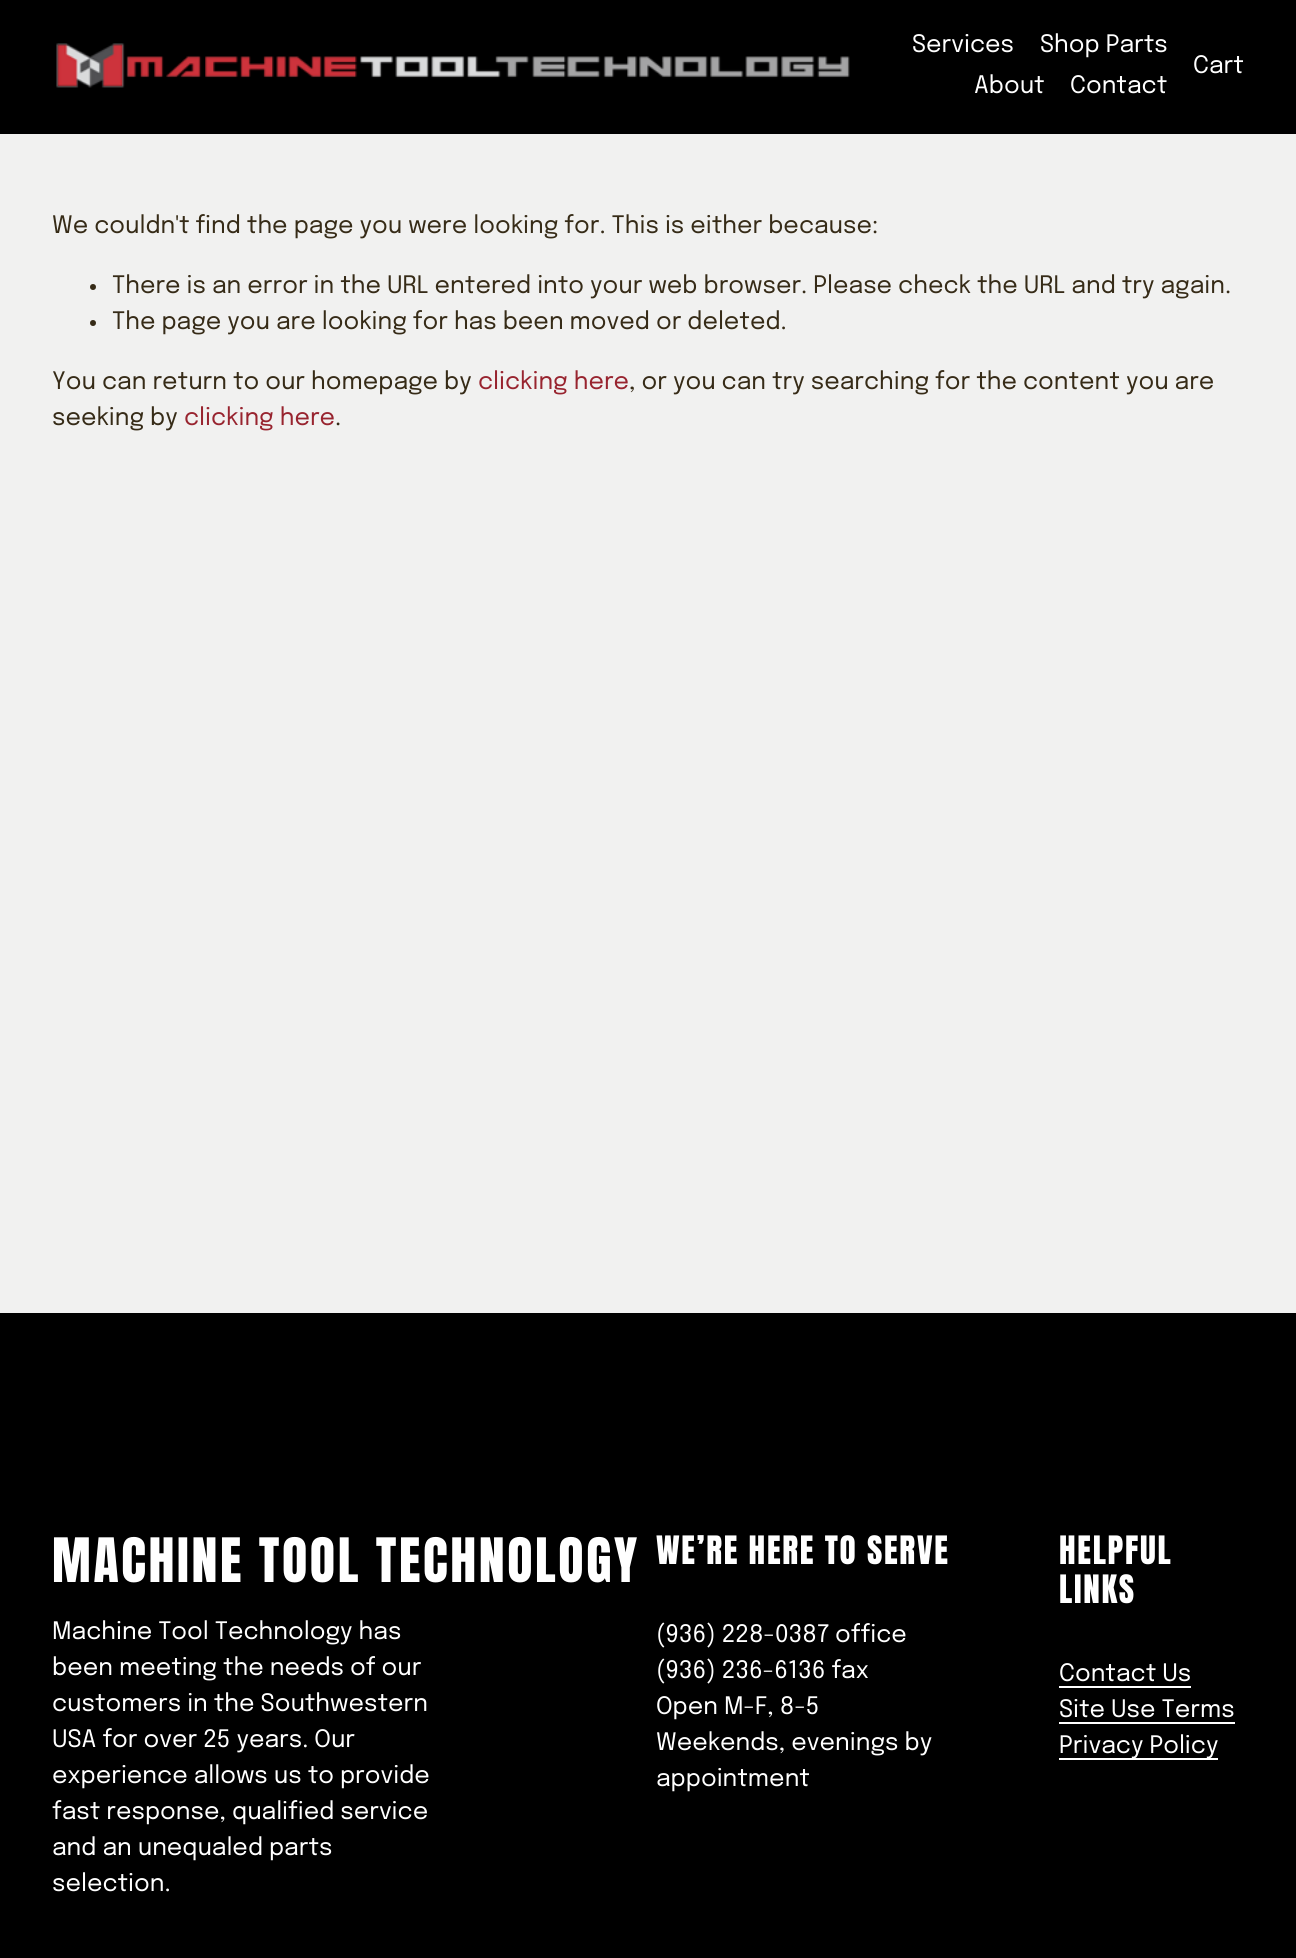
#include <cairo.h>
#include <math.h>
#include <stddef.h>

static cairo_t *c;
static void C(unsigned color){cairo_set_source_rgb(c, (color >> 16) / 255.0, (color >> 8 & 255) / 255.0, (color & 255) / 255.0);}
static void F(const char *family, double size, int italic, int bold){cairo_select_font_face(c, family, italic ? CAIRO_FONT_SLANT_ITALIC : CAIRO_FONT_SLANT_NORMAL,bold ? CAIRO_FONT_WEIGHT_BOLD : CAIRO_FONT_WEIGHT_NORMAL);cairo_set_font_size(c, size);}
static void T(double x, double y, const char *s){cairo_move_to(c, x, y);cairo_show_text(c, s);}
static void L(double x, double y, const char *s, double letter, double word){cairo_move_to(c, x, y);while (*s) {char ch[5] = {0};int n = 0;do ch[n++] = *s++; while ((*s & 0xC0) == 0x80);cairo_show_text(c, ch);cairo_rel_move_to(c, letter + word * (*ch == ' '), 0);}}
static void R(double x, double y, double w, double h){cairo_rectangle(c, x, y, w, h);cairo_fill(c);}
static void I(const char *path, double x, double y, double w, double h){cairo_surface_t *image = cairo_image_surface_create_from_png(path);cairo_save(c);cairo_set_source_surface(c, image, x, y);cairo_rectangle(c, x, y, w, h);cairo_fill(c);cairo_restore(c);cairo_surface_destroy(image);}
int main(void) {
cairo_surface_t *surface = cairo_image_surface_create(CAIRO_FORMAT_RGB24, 1296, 1958);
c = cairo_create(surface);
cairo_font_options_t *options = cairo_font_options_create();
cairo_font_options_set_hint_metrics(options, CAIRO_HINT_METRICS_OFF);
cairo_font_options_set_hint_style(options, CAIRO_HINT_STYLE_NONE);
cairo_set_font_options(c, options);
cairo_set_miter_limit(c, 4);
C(0xf1f1f0);
cairo_paint(c);
C(0x000000);
R(0,0,1296,134);
I("1.png",56,43,794,45);
F("Epilogue",24,0,0);
C(0xffffff);
T(912,52,"Services");
T(1040,52,"Shop Parts");
T(974,93,"About");
T(1070,93,"Contact");
T(1193,73,"Cart");
C(0x362b17);
T(52,233,"We couldn't find the page you were looking for. This is either because:");
cairo_new_path(c);
cairo_arc(c,93,287,3,0,2 * M_PI);
cairo_fill(c);
T(112,293,"There is an error in the URL entered into your web browser. Please check the URL and try again.");
cairo_new_path(c);
cairo_arc(c,93,323,3,0,2 * M_PI);
cairo_fill(c);
T(112,329,"The page you are looking for has been moved or deleted.");
T(52,389,"You can return to our homepage by");
C(0x98242f);
T(478,389,"clicking here");
C(0x362b17);
T(629,389,", or you can try searching for the content you are");
T(52,425,"seeking by");
C(0x98242f);
T(184,425,"clicking here");
C(0x362b17);
T(335,425,".");
C(0x000000);
R(0,1313,1296,645);
F("Anton",52,0,0);
C(0xffffff);
L(52,1582,"MACHINE TOOL TECHNOLOGY",2.6,0);
F("Anton",33.25,0,0);
L(656,1564,"WE’RE HERE TO SERVE",1.7,0);
F("Epilogue",24,0,0);
T(656,1642,"(936) 228-0387 office");
T(656,1678,"(936) 236-6136 fax");
T(656,1714,"Open M-F, 8-5");
T(656,1750,"Weekends, evenings by");
T(656,1786,"appointment");
F("Anton",33.25,0,0);
L(1059,1564,"HELPFUL",1.7,0);
L(1059,1603,"LINKS",1.7,0);
F("Epilogue",24,0,0);
T(1059,1681,"Contact Us");
R(1059,1686,132,2);
T(1059,1717,"Site Use Terms");
R(1059,1722,176,2);
R(1059,1758,159,2);
T(1059,1753,"Privacy Policy");
T(52,1639,"Machine Tool Technology has");
T(52,1675,"been meeting the needs of our");
T(52,1711,"customers in the Southwestern");
T(52,1747,"USA for over 25 years. Our");
T(52,1783,"experience allows us to provide");
T(52,1819,"fast response, qualified service");
T(52,1855,"and an unequaled parts");
T(52,1891,"selection.");
cairo_surface_write_to_png(surface, "o.png");
cairo_font_options_destroy(options);
cairo_destroy(c);
cairo_surface_destroy(surface);
return 0;
}
